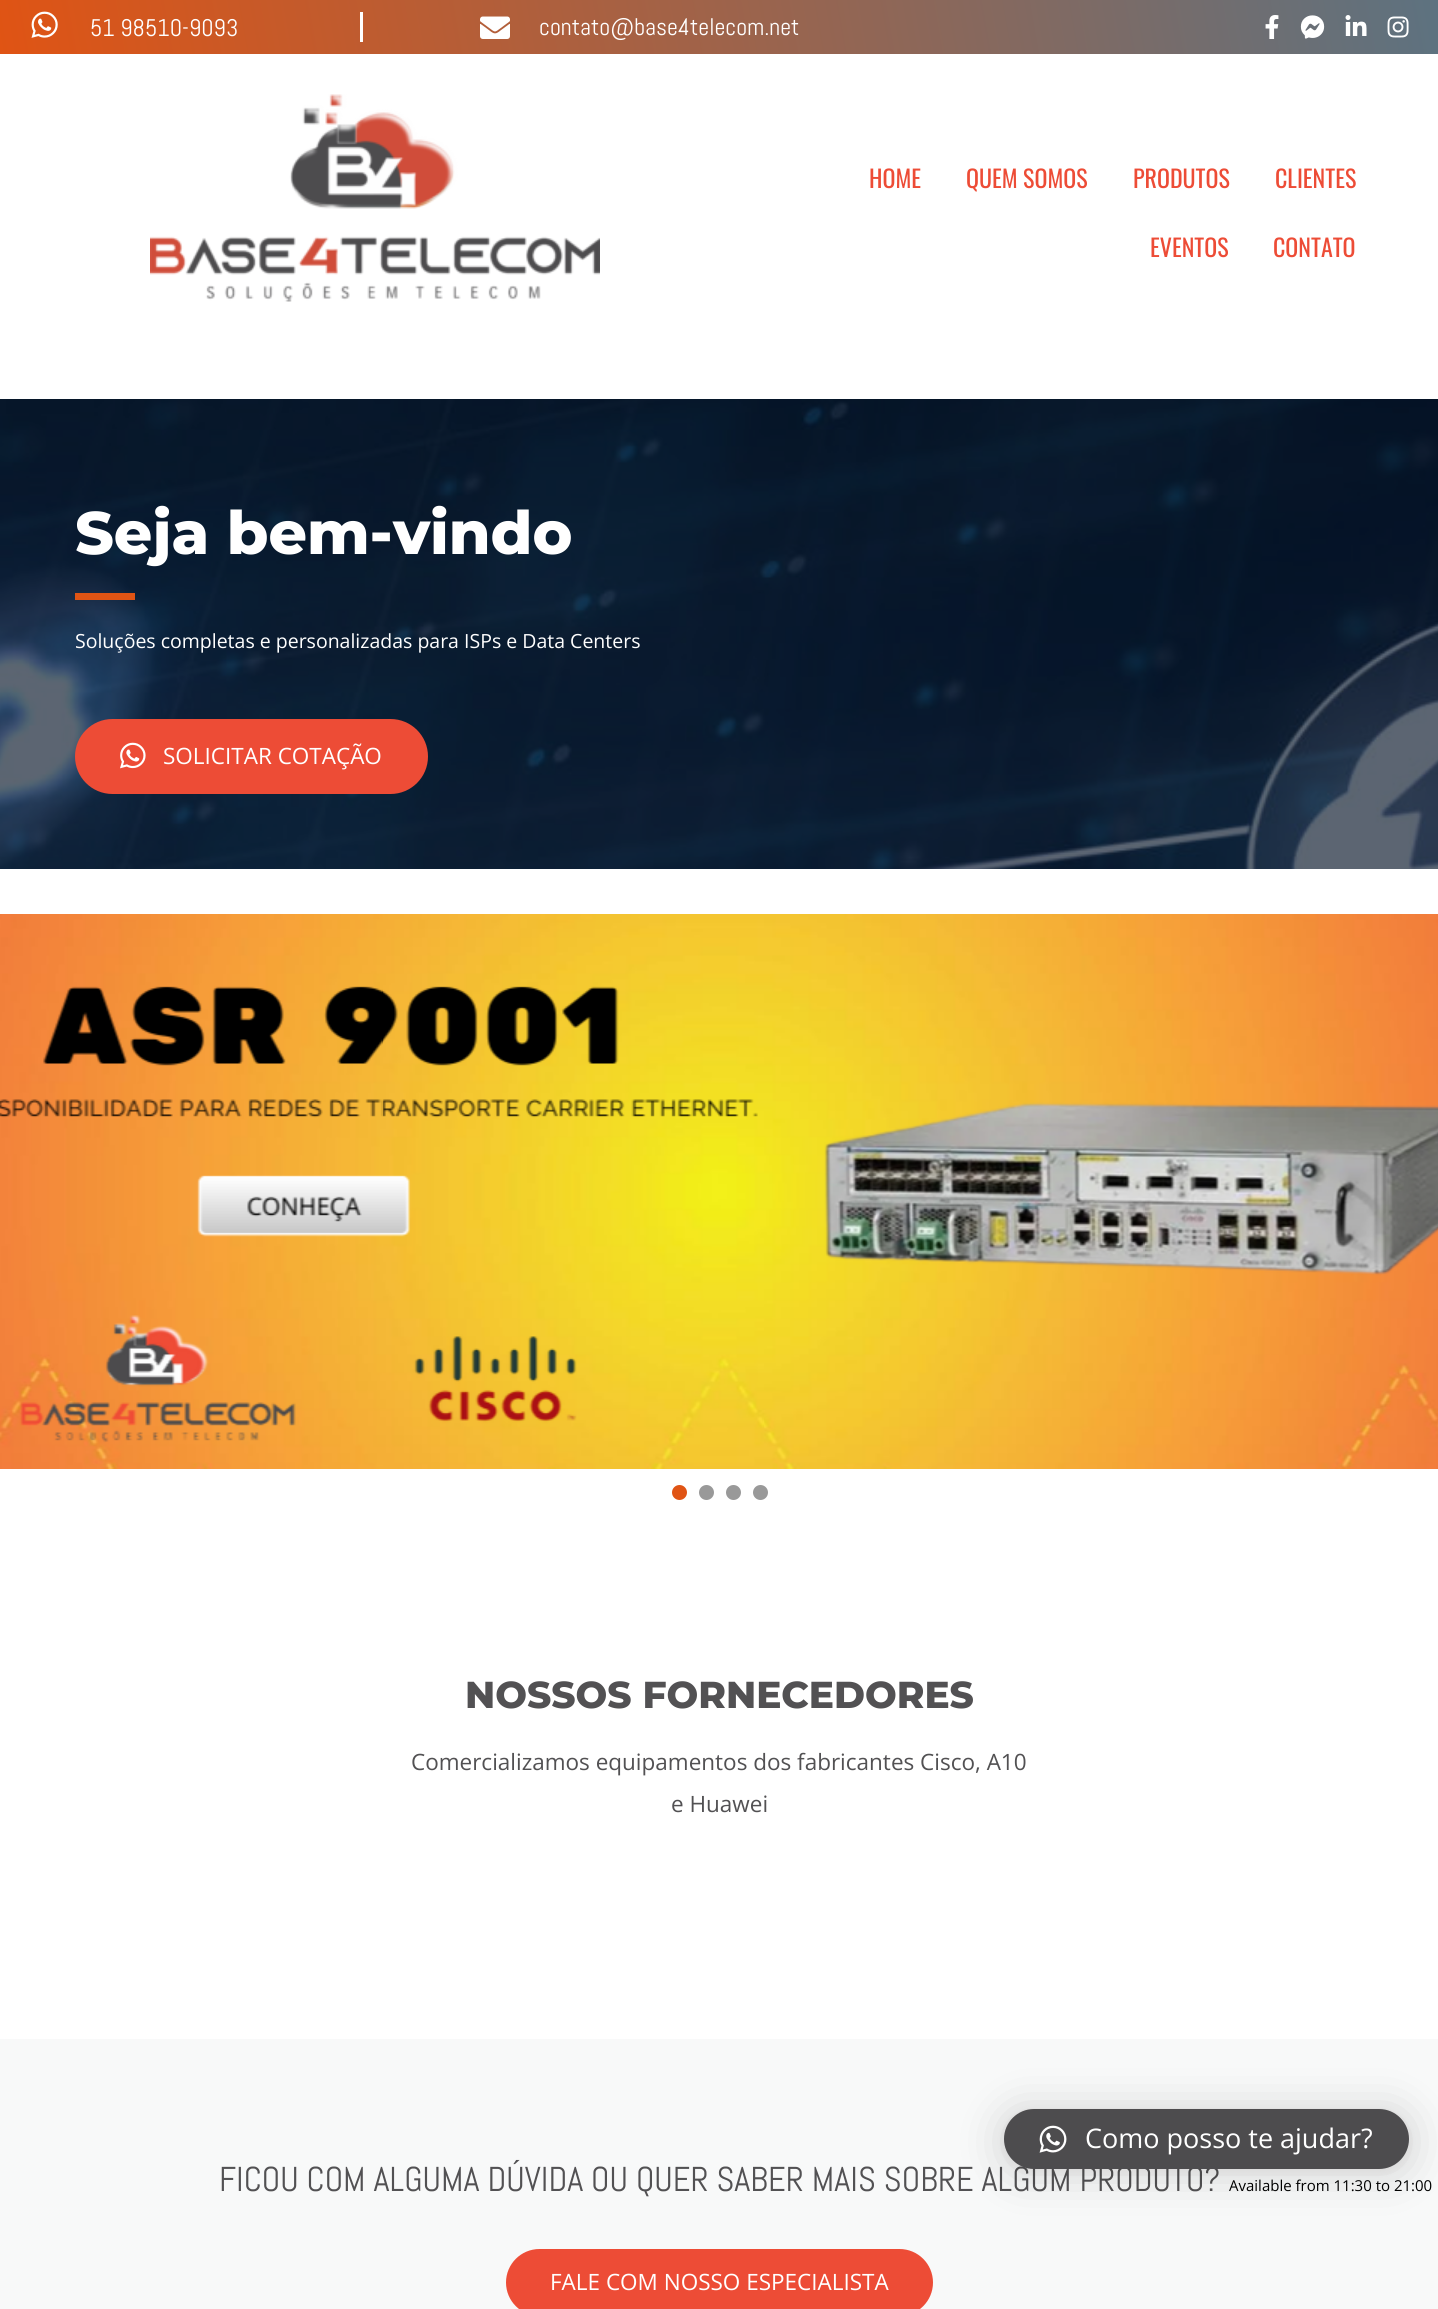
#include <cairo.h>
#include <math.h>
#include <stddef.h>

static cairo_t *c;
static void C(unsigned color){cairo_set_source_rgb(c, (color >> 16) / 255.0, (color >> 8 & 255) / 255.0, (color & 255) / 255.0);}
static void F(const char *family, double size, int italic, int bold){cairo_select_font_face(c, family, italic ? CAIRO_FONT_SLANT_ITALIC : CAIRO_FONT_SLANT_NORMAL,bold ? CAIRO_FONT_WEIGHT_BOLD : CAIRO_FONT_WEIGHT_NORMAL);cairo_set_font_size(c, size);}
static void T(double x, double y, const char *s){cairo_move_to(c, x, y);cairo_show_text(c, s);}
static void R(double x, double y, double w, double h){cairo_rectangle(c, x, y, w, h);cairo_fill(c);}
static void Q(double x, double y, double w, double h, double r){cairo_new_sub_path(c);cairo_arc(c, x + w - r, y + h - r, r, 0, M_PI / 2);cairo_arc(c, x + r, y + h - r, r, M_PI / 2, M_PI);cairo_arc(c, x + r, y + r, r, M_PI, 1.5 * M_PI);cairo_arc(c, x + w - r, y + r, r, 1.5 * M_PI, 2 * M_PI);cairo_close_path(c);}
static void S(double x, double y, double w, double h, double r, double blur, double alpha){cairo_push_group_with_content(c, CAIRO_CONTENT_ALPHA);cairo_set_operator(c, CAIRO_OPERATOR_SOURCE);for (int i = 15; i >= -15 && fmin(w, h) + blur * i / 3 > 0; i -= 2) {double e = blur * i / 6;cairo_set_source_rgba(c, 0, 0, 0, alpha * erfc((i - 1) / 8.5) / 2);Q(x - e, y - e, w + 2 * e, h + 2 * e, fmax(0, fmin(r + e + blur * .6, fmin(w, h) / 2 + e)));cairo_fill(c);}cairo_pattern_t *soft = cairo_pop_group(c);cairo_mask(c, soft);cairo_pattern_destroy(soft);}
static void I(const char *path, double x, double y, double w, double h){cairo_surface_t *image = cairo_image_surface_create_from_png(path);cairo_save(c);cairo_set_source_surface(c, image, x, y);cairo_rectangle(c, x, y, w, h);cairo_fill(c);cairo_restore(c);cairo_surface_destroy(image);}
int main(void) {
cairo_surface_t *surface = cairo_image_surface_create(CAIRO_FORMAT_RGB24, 1438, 2309);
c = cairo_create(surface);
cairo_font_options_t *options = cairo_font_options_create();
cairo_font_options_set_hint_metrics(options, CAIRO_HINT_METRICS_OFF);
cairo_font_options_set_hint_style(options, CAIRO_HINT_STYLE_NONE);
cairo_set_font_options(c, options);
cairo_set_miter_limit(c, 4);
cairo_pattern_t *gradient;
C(0xffffff);
cairo_paint(c);
gradient = cairo_pattern_create_linear(17,151,1421,-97);
cairo_pattern_add_color_stop_rgba(gradient,0,0.878,0.329,0.078,1);
cairo_pattern_add_color_stop_rgba(gradient,1,0.365,0.447,0.502,1);
cairo_set_source(c,gradient);
cairo_pattern_destroy(gradient);
R(0,0,1438,54);
I("1.png",31,11,27,27);
F("Abel",24,0,0);
C(0xffffff);
T(90,36,"51 98510-9093");
R(360,12,3,30);
I("2.png",480,16,30,23);
T(539,35,"contato@base4telecom.net");
I("3.png",1265,15,14,24);
I("4.png",1300,15,25,24);
I("5.png",1345,15,22,21);
I("6.png",1387,16,22,22);
I("7.png",150,94,450,208);
F("Oswald",24,0,0);
C(0xed4c36);
T(869,188,"HOME");
T(966,188,"QUEM SOMOS");
T(1133,188,"PRODUTOS");
T(1275,188,"CLIENTES");
T(1150,257,"EVENTOS");
T(1273,257,"CONTATO");
I("8.png",0,399,1438,470);
F("Montserrat Thin",60,0,0);
C(0xffffff);
T(75,554,"Seja bem-vindo");
C(0xe05414);
R(75,593,60,7);
F("Open Sans",19.5,0,0);
C(0xffffff);
T(75,648,"Soluções completas e personalizadas para ISPs e Data Centers");
C(0xed4c36);
Q(75,719,353,75,37.5);
cairo_fill(c);
I("9.png",120,742,26,27);
F("Open Sans",22.5,0,0);
C(0xffffff);
T(163,764,"SOLICITAR COTAÇÃO");
I("10.png",0,914,1438,555);
C(0xe05414);
cairo_arc(c,679.5,1492.5,7.5,0,2 * M_PI);
cairo_fill(c);
C(0x999999);
cairo_arc(c,706.5,1492.5,7.5,0,2 * M_PI);
cairo_fill(c);
cairo_arc(c,733.5,1492.5,7.5,0,2 * M_PI);
cairo_fill(c);
cairo_arc(c,760.5,1492.5,7.5,0,2 * M_PI);
cairo_fill(c);
F("Montserrat Thin",37.5,0,0);
C(0x525153);
T(465,1708,"NOSSOS FORNECEDORES");
F("Open Sans",22.5,0,0);
T(411,1770,"Comercializamos equipamentos dos fabricantes Cisco, A10");
T(671,1812,"e Huawei");
C(0xf8f9f9);
R(0,2039,1438,270);
F("Abel",34.5,0,0);
C(0x525153);
T(219,2191,"FICOU COM ALGUMA DÚVIDA OU QUER SABER MAIS SOBRE ALGUM PRODUTO?");
C(0xed4c36);
Q(506,2249,427,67,33.5);
cairo_fill(c);
F("Open Sans",22.5,0,0);
C(0xffffff);
T(550,2290,"FALE COM NOSSO ESPECIALISTA");
C(0x000000);
S(1004,2112,405,60,30,24,.16);
S(1004,2111,405,60,30,4.5,.06);
C(0x4d4c4e);
Q(1004,2109,405,60,30);
cairo_fill(c);
I("11.png",1039,2125,28,28);
F("Open Sans",27,0,0);
C(0xffffff);
T(1085,2148,"Como posso te ajudar?");
F("Open Sans",15,0,0);
C(0x000000);
T(1229,2191,"Available from 11:30 to 21:00");
cairo_surface_write_to_png(surface, "o.png");
cairo_font_options_destroy(options);
cairo_destroy(c);
cairo_surface_destroy(surface);
return 0;
}
